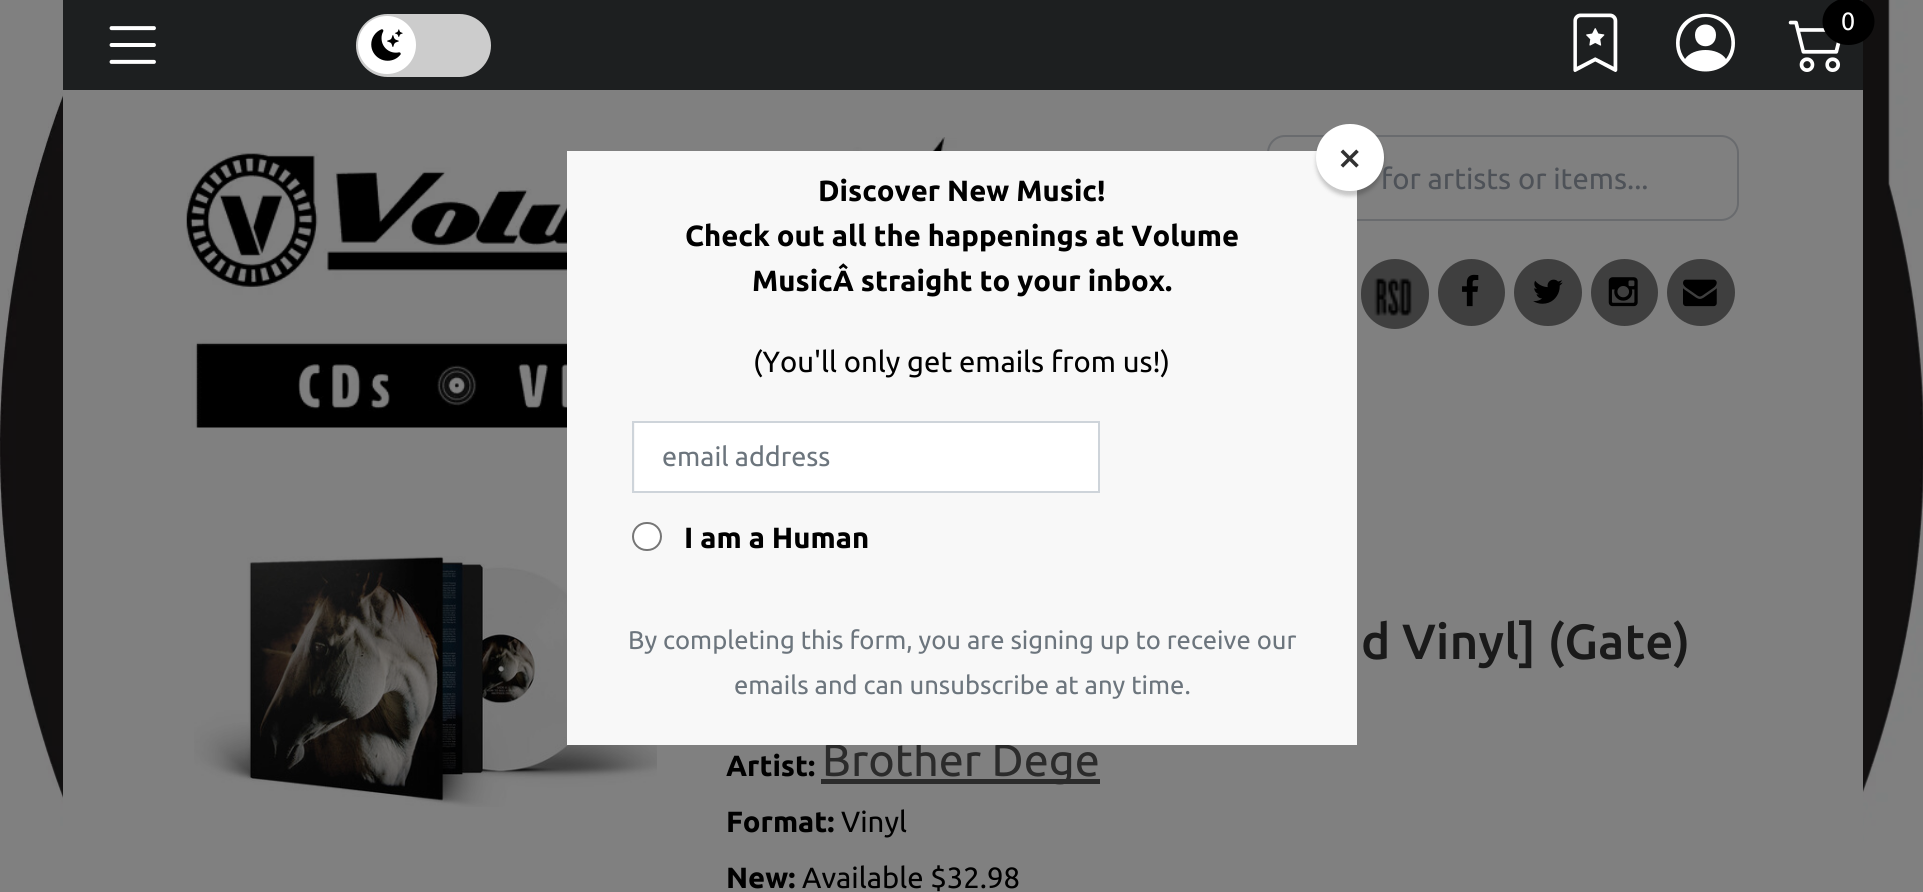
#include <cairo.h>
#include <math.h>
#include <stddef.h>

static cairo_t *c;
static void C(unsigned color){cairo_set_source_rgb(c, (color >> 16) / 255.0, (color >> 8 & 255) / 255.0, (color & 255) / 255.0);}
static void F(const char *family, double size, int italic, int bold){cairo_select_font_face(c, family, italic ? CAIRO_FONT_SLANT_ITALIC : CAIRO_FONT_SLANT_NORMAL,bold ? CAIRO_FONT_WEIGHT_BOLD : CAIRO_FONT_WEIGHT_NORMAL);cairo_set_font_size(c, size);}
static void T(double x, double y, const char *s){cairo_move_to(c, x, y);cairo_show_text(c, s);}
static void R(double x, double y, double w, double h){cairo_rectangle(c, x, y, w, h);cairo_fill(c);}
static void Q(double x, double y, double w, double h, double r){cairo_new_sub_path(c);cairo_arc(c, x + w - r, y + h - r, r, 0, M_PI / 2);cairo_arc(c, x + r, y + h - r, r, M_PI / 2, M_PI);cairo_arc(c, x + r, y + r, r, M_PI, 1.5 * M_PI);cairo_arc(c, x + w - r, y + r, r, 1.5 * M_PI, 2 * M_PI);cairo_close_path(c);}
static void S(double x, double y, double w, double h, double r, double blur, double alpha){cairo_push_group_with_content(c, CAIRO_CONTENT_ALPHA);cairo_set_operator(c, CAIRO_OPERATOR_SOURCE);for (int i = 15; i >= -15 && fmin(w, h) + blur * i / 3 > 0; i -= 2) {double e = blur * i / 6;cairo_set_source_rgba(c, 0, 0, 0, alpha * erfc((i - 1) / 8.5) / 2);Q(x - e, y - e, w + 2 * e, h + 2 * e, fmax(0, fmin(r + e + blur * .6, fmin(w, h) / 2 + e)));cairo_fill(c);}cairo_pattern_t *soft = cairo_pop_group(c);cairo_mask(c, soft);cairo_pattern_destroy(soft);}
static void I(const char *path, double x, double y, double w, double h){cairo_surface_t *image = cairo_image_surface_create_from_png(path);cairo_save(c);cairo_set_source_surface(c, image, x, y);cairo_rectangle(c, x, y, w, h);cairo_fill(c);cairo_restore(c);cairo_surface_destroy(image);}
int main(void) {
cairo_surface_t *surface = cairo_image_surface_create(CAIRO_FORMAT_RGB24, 1923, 892);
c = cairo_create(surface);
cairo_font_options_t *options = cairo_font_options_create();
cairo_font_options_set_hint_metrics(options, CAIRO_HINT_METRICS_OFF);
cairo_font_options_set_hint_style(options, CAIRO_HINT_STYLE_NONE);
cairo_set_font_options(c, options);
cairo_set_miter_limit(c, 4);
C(0xffffff);
cairo_paint(c);
I("1.png",0,0,1923,892);
C(0x808080);
R(63,90,1800,802);
C(0x1d1f20);
R(63,0,1800,90);
I("2.png",109,26,47,38);
C(0xcccccc);
Q(356,14,135,63,31.5);
cairo_fill(c);
C(0xffffff);
cairo_arc(c,387,45,29,0,2 * M_PI);
cairo_fill(c);
I("3.png",371,29,32,32);
I("4.png",1573,13,45,59);
cairo_new_path(c);
cairo_move_to(c,1716,35);
cairo_curve_to(c,1716,50,1695,50,1695,35);
cairo_curve_to(c,1695,21,1716,21,1716,35);
cairo_close_path(c);
cairo_move_to(c,1676,43);
cairo_curve_to(c,1676,4,1735,4,1735,43);
cairo_curve_to(c,1735,81,1676,81,1676,43);
cairo_close_path(c);
cairo_move_to(c,1706,17);
cairo_curve_to(c,1684,17,1672,42,1685,59);
cairo_curve_to(c,1693,47,1718,47,1726,59);
cairo_curve_to(c,1739,42,1727,17,1706,17);
cairo_close_path(c);
cairo_fill(c);
I("5.png",1788,20,53,52);
C(0x000000);
cairo_new_path(c);
cairo_move_to(c,1848.5,-2);
cairo_curve_to(c,1863,-2,1874.5,8.5,1874.5,21.5);
cairo_curve_to(c,1874.5,34.5,1863,45,1848.5,45);
cairo_curve_to(c,1834,45,1822.5,34.5,1822.5,21.5);
cairo_curve_to(c,1822.5,8.5,1834,-2,1848.5,-2);
cairo_close_path(c);
cairo_fill(c);
F("Ubuntu",25,0,0);
C(0xffffff);
T(1841,30,"0");
I("6.png",186,137,1014,291);
Q(1268,136,470,84,17);
C(0x696b6e);
cairo_stroke(c);
I("12.png",194,556,463,251);
C(0x2b2b2b);
R(821,779,279,5);
F("Ubuntu",45,0,0);
T(822,776,"Brother Dege");
C(0xf8f8f8);
R(567,151,790,594);
C(0x000000);
S(1316,128,68,68,34,2,.2);
F("Ubuntu",29.25,0,0);
C(0x4e5258);
T(1381,189,"for artists or items...");
C(0xffffff);
Q(1316,124,68,67,33.5);
cairo_fill(c);
F("Ubuntu",45,0,0);
C(0x323232);
T(1337,172,"×");
F("Ubuntu",29.25,0,1);
C(0x000000);
T(818,201,"Discover New Music!");
T(685,246,"Check out all the happenings at Volume");
T(752,291,"MusicÂ straight to your inbox.");
F("Ubuntu",29.25,0,0);
T(753,372,"(You'll only get emails from us!)");
C(0xffffff);
R(635,423,463,68);
cairo_rectangle(c,633,422,466,70);
C(0xced4da);
cairo_stroke(c);
F("Ubuntu",27,0,0);
C(0x6c757d);
T(662,466,"email address");
C(0xffffff);
Q(633,523,28,27,13.5);
cairo_fill_preserve(c);
C(0x767676);
cairo_stroke(c);
F("Ubuntu",29.25,0,1);
C(0x000000);
T(684,548,"I am a Human");
F("Ubuntu",25.6,0,0);
C(0x6c757d);
T(628,649,"By completing this form, you are signing up to receive our");
T(734,694,"emails and can unsubscribe at any time.");
C(0x3f3f3f);
Q(1361,259,68,70,34);
cairo_fill(c);
I("7.png",1374,278,38,38);
cairo_arc(c,1471.5,292.5,33.5,0,2 * M_PI);
cairo_fill(c);
I("8.png",1462,274,17,33);
Q(1514,259,68,67,33.5);
cairo_fill(c);
I("9.png",1533,279,30,25);
cairo_arc(c,1624.5,292.5,33.5,0,2 * M_PI);
cairo_fill(c);
I("10.png",1608,277,30,30);
Q(1667,259,68,67,33.5);
cairo_fill(c);
I("11.png",1683,279,34,28);
F("Ubuntu Medium",49.5,0,0);
C(0x1a1a1a);
T(1361,659,"d Vinyl] (Gate)");
F("Ubuntu",29.25,0,1);
C(0x000000);
T(726,776,"Artist:");
T(726,832,"Format:");
F("Ubuntu",29.25,0,0);
T(841,832,"Vinyl");
F("Ubuntu",29.25,0,1);
T(726,888,"New:");
F("Ubuntu",29.25,0,0);
T(802,888,"Available $32.98");
cairo_surface_write_to_png(surface, "o.png");
cairo_font_options_destroy(options);
cairo_destroy(c);
cairo_surface_destroy(surface);
return 0;
}
